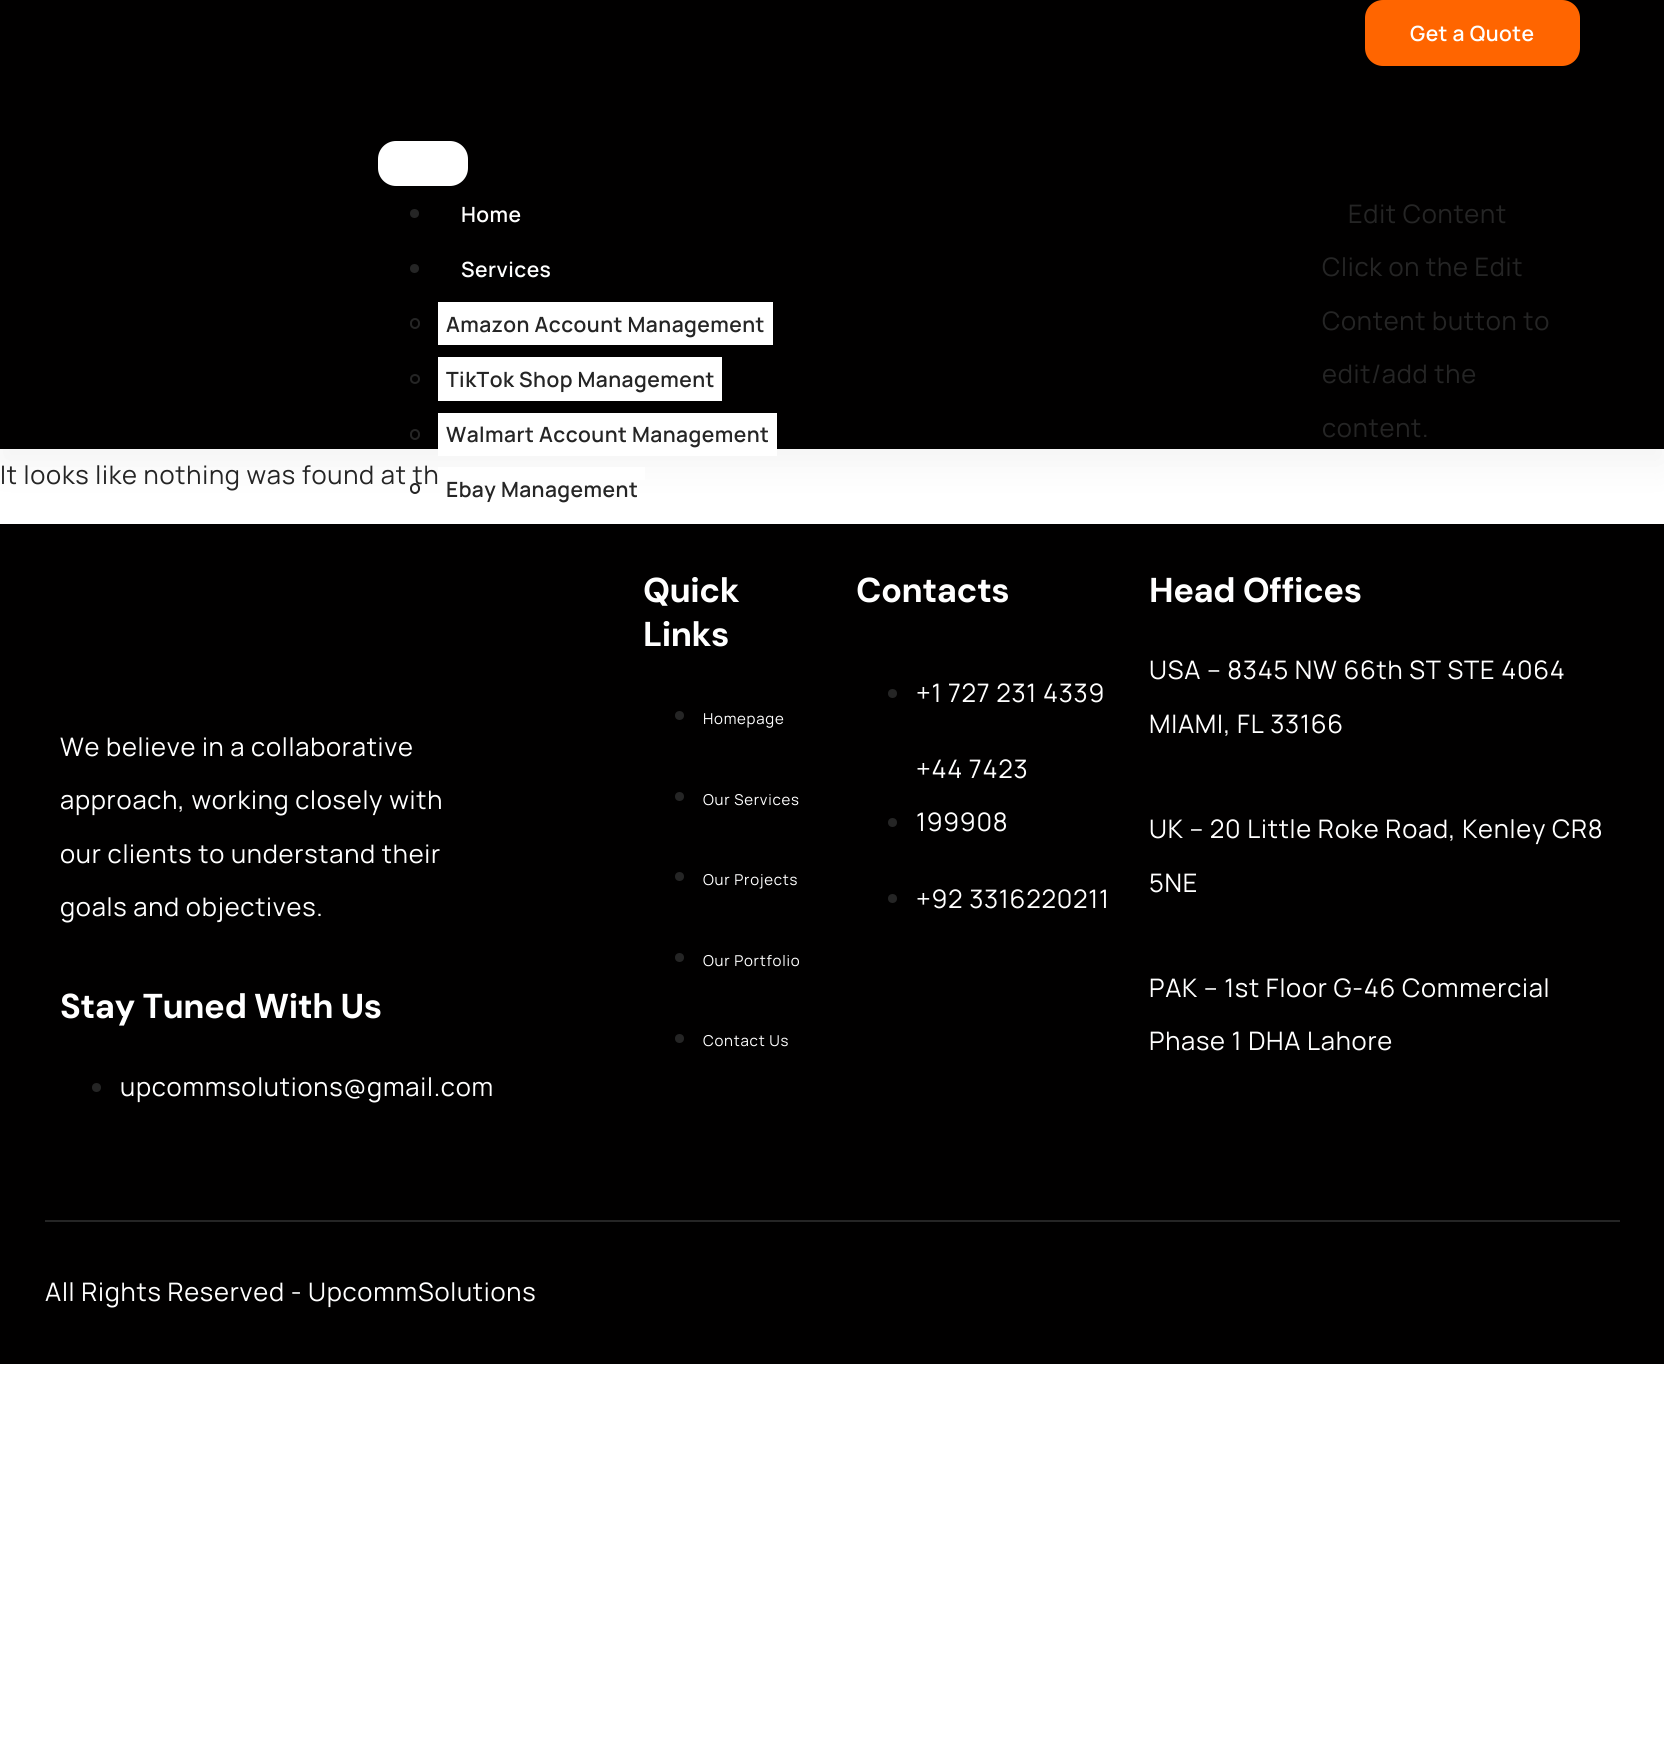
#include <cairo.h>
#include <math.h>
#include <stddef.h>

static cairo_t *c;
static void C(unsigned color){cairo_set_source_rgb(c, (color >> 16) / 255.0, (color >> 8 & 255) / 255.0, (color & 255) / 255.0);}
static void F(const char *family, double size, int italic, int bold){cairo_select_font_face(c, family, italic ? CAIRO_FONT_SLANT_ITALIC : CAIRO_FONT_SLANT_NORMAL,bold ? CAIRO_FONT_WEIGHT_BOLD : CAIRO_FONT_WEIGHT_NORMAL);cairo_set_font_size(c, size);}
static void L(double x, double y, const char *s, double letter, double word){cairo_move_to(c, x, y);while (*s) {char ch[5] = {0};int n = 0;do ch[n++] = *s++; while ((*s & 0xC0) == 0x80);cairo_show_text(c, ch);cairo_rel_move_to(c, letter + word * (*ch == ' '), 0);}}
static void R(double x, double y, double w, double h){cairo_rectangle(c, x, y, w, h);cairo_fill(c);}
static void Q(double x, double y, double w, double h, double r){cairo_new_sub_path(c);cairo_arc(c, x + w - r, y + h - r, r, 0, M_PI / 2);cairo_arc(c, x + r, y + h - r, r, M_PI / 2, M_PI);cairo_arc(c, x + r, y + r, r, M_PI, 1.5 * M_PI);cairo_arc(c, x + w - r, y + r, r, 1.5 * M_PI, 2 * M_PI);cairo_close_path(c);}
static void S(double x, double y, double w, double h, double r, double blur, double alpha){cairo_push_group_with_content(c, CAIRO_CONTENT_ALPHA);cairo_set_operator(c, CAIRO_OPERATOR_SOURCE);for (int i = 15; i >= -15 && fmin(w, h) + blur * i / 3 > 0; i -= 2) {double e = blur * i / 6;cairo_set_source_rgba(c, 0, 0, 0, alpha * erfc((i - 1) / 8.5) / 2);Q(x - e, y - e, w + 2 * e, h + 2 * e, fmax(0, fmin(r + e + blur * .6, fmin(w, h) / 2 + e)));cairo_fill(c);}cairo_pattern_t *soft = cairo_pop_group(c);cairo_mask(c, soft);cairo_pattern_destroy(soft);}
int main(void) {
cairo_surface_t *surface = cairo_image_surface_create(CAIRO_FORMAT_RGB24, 1664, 1743);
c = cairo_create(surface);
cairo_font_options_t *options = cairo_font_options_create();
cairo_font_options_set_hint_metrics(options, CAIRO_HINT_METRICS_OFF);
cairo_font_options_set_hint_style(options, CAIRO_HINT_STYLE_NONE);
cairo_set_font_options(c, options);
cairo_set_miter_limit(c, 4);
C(0xffffff);
cairo_paint(c);
F("Manrope",25.5,0,0);
C(0x252525);
L(0,484,"It looks like nothing was found at th",.75,0);
C(0x000000);
S(0,15,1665,449,0,19,.05);
C(0x010000);
R(0,0,1664,449);
C(0xffffff);
Q(378,141,90,45,18);
cairo_fill(c);
C(0x252525);
cairo_arc(c,414.5,213.5,4.5,0,2 * M_PI);
cairo_fill(c);
F("Manrope SemiBold",21,0,0);
C(0xffffff);
L(461,222,"Home",.45,0);
C(0x252525);
cairo_new_path(c);
cairo_arc(c,414.5,268.5,4.5,0,2 * M_PI);
cairo_fill(c);
C(0xffffff);
L(461,277,"Services",.45,0);
Q(411,319,8,9,4);
C(0x252525);
cairo_stroke(c);
C(0xffffff);
R(438,302,335,43);
C(0x252525);
L(446,332,"Amazon Account Management",.45,0);
cairo_new_path(c);
cairo_arc(c,415,379,4,0,2 * M_PI);
cairo_stroke(c);
C(0xffffff);
R(438,357,284,44);
C(0x252525);
L(446,387,"TikTok Shop Management",.45,0);
Q(411,430,8,9,4);
cairo_stroke(c);
C(0xffffff);
R(438,413,339,43);
C(0x252525);
L(446,442,"Walmart Account Management",.45,0);
Q(411,484,8,9,4);
cairo_stroke(c);
L(446,497,"Ebay Management",.45,0);
C(0xffffff);
R(438,467,207,13);
C(0xff6500);
Q(1365,0,215,66,18);
cairo_fill(c);
C(0xffffff);
L(1410,41,"Get a Quote",.45,0);
F("Manrope",25.5,0,0);
C(0x252525);
L(1348,223,"Edit Content",.75,0);
L(1322,276,"Click on the Edit",.75,0);
L(1322,330,"Content button to",.75,0);
L(1322,383,"edit/add the",.75,0);
L(1322,437,"content.",.75,0);
C(0x010000);
R(0,524,1664,840);
C(0xffffff);
L(60,756,"We believe in a collaborative",.75,0);
L(60,809,"approach, working closely with",.75,0);
L(60,863,"our clients to understand their",.75,0);
L(60,916,"goals and objectives.",.75,0);
F("DM Sans",34.5,0,1);
L(60,1018,"Stay Tuned With Us",-.5,0);
C(0x252525);
cairo_new_path(c);
cairo_arc(c,96.5,1087.5,4.5,0,2 * M_PI);
cairo_fill(c);
F("Manrope",25.5,0,0);
C(0xffffff);
L(120,1096,"upcommsolutions@gmail.com",.75,0);
F("DM Sans",34.5,0,1);
L(643,602,"Quick",-.5,0);
L(643,646,"Links",-.5,0);
C(0x252525);
cairo_new_path(c);
cairo_arc(c,679.5,715.5,4.5,0,2 * M_PI);
cairo_fill(c);
F("Manrope",15,0,0);
C(0xffffff);
L(703,724,"Homepage",.75,0);
C(0x252525);
cairo_new_path(c);
cairo_arc(c,679.5,796.5,4.5,0,2 * M_PI);
cairo_fill(c);
C(0xffffff);
L(703,805,"Our Services",.75,0);
C(0x252525);
cairo_new_path(c);
cairo_arc(c,679.5,876.5,4.5,0,2 * M_PI);
cairo_fill(c);
C(0xffffff);
L(703,885,"Our Projects",.75,0);
C(0x252525);
cairo_new_path(c);
cairo_arc(c,679.5,957.5,4.5,0,2 * M_PI);
cairo_fill(c);
C(0xffffff);
L(703,966,"Our Portfolio",.75,0);
C(0x252525);
cairo_new_path(c);
cairo_arc(c,679.5,1038.5,4.5,0,2 * M_PI);
cairo_fill(c);
C(0xffffff);
L(703,1046,"Contact Us",.75,0);
F("DM Sans",34.5,0,1);
L(856,602,"Contacts",-.5,0);
C(0x252525);
cairo_new_path(c);
cairo_arc(c,892.5,693.5,4.5,0,2 * M_PI);
cairo_fill(c);
F("Manrope",25.5,0,0);
C(0xffffff);
L(916,702,"+1 727 231 4339",.75,0);
C(0x252525);
cairo_new_path(c);
cairo_arc(c,892.5,822.5,4.5,0,2 * M_PI);
cairo_fill(c);
C(0xffffff);
L(916,778,"+44 7423",.75,0);
L(916,831,"199908",.75,0);
C(0x252525);
cairo_new_path(c);
cairo_arc(c,892.5,898.5,4.5,0,2 * M_PI);
cairo_fill(c);
C(0xffffff);
L(916,908,"+92 3316220211",.75,0);
F("DM Sans",34.5,0,1);
L(1149,602,"Head Offices",-.5,0);
F("Manrope",25.5,0,0);
L(1149,679,"USA – 8345 NW 66th ST STE 4064",.75,0);
L(1149,733,"MIAMI, FL 33166",.75,0);
L(1149,838,"UK – 20 Little Roke Road, Kenley CR8",.75,0);
L(1149,892,"5NE",.75,0);
L(1149,997,"PAK – 1st Floor G-46 Commercial",.75,0);
L(1149,1050,"Phase 1 DHA Lahore",.75,0);
C(0x252525);
R(45,1220,1575,2);
C(0xffffff);
L(45,1301,"All Rights Reserved - UpcommSolutions",.75,0);
cairo_surface_write_to_png(surface, "o.png");
cairo_font_options_destroy(options);
cairo_destroy(c);
cairo_surface_destroy(surface);
return 0;
}
